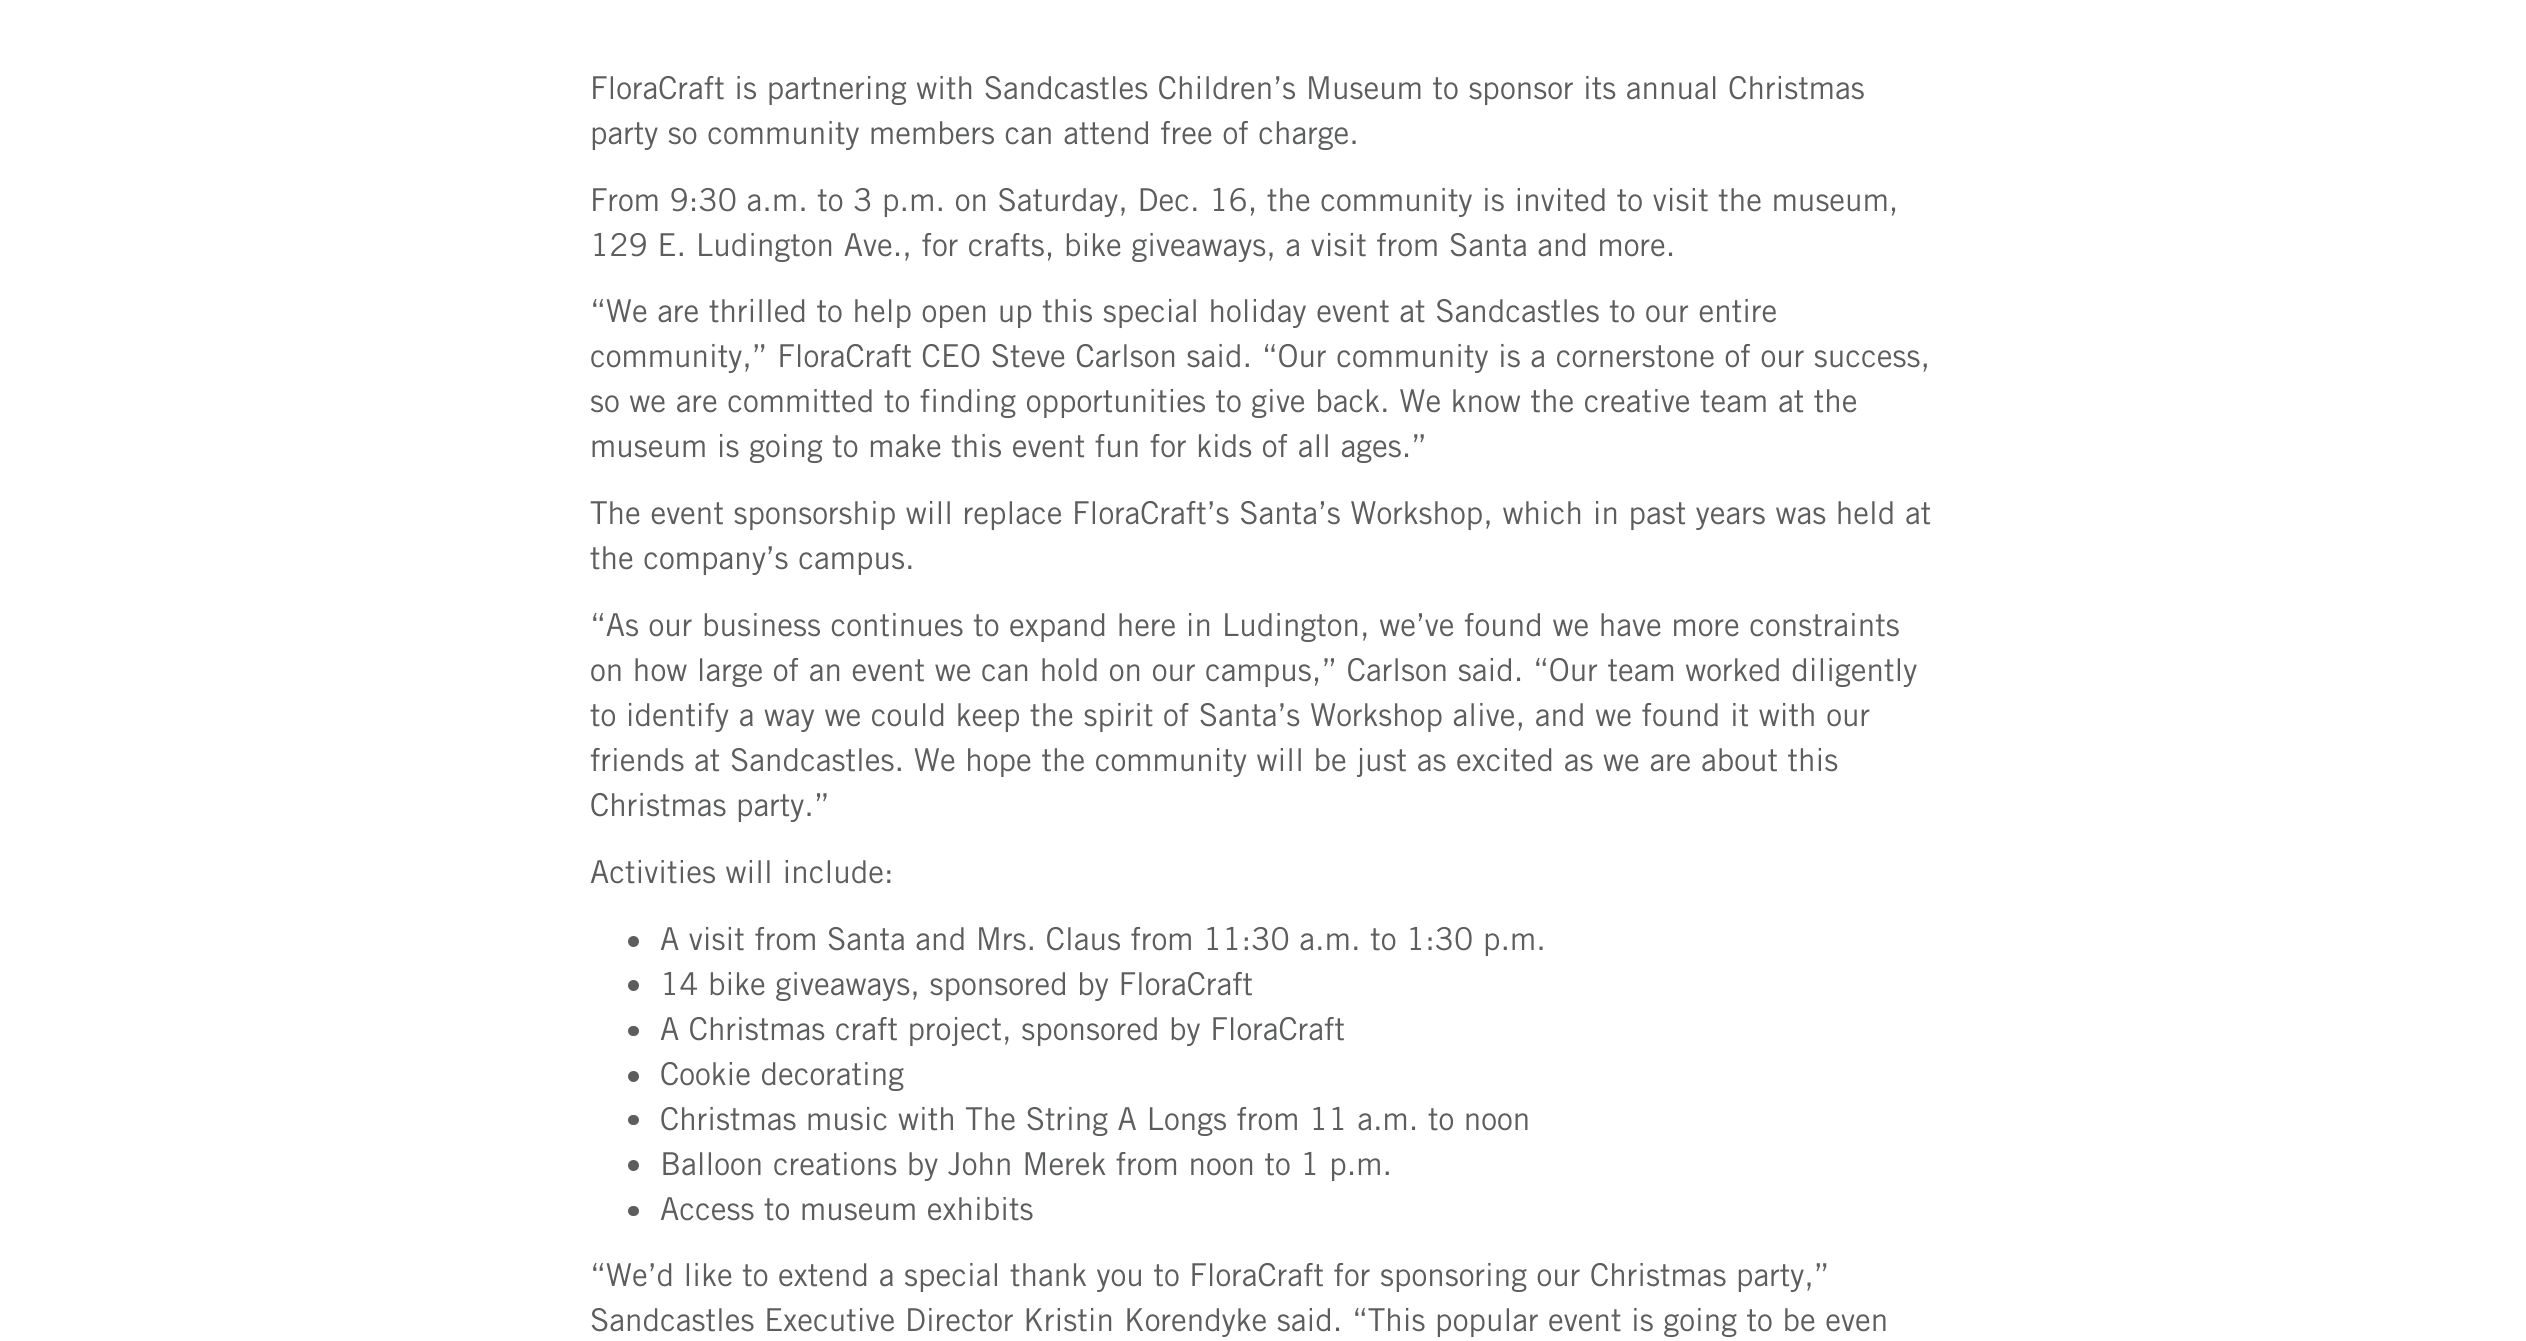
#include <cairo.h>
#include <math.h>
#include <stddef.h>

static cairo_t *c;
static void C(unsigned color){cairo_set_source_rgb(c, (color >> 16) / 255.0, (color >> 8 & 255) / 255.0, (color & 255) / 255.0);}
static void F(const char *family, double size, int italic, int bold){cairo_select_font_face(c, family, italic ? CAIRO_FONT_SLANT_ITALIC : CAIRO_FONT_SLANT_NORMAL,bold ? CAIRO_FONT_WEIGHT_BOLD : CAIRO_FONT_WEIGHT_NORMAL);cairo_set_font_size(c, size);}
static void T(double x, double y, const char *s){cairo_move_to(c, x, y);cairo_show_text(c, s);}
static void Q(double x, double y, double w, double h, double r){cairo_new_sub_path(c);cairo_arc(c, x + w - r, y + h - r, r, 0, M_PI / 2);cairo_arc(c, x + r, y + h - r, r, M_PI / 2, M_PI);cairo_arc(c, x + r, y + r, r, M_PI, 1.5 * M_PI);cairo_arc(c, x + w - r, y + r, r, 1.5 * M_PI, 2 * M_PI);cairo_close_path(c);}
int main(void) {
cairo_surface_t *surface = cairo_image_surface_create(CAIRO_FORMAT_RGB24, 2526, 1341);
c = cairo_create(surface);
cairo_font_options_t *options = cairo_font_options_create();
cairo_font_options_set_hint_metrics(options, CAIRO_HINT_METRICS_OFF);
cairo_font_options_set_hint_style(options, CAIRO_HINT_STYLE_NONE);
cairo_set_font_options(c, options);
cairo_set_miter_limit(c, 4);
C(0xffffff);
cairo_paint(c);
F("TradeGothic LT",31.5,0,0);
C(0x5c5d5d);
T(590,99,"FloraCraft is partnering with Sandcastles Children’s Museum to sponsor its annual Christmas");
T(590,144,"party so community members can attend free of charge.");
T(590,211,"From 9:30 a.m. to 3 p.m. on Saturday, Dec. 16, the community is invited to visit the museum,");
T(590,256,"129 E. Ludington Ave., for crafts, bike giveaways, a visit from Santa and more.");
T(590,322,"“We are thrilled to help open up this special holiday event at Sandcastles to our entire");
T(590,367,"community,” FloraCraft CEO Steve Carlson said. “Our community is a cornerstone of our success,");
T(590,412,"so we are committed to finding opportunities to give back. We know the creative team at the");
T(590,457,"museum is going to make this event fun for kids of all ages.”");
T(590,524,"The event sponsorship will replace FloraCraft’s Santa’s Workshop, which in past years was held at");
T(590,569,"the company’s campus.");
T(590,636,"“As our business continues to expand here in Ludington, we’ve found we have more constraints");
T(590,681,"on how large of an event we can hold on our campus,” Carlson said. “Our team worked diligently");
T(590,726,"to identify a way we could keep the spirit of Santa’s Workshop alive, and we found it with our");
T(590,771,"friends at Sandcastles. We hope the community will be just as excited as we are about this");
T(590,816,"Christmas party.”");
T(590,883,"Activities will include:");
cairo_new_path(c);
cairo_arc(c,633.5,941.5,5.5,0,2 * M_PI);
cairo_fill(c);
T(660,950,"A visit from Santa and Mrs. Claus from 11:30 a.m. to 1:30 p.m.");
cairo_new_path(c);
cairo_arc(c,633.5,985.5,5.5,0,2 * M_PI);
cairo_fill(c);
T(660,995,"14 bike giveaways, sponsored by FloraCraft");
Q(628,1026,11,10,5);
cairo_fill(c);
T(660,1040,"A Christmas craft project, sponsored by FloraCraft");
cairo_new_path(c);
cairo_arc(c,633.5,1076.5,5.5,0,2 * M_PI);
cairo_fill(c);
T(660,1085,"Cookie decorating");
Q(628,1115,11,10,5);
cairo_fill(c);
T(660,1130,"Christmas music with The String A Longs from 11 a.m. to noon");
cairo_new_path(c);
cairo_arc(c,633.5,1165.5,5.5,0,2 * M_PI);
cairo_fill(c);
T(660,1175,"Balloon creations by John Merek from noon to 1 p.m.");
Q(628,1206,11,10,5);
cairo_fill(c);
T(660,1220,"Access to museum exhibits");
T(590,1286,"“We’d like to extend a special thank you to FloraCraft for sponsoring our Christmas party,”");
T(590,1331,"Sandcastles Executive Director Kristin Korendyke said. “This popular event is going to be even");
cairo_surface_write_to_png(surface, "o.png");
cairo_font_options_destroy(options);
cairo_destroy(c);
cairo_surface_destroy(surface);
return 0;
}
